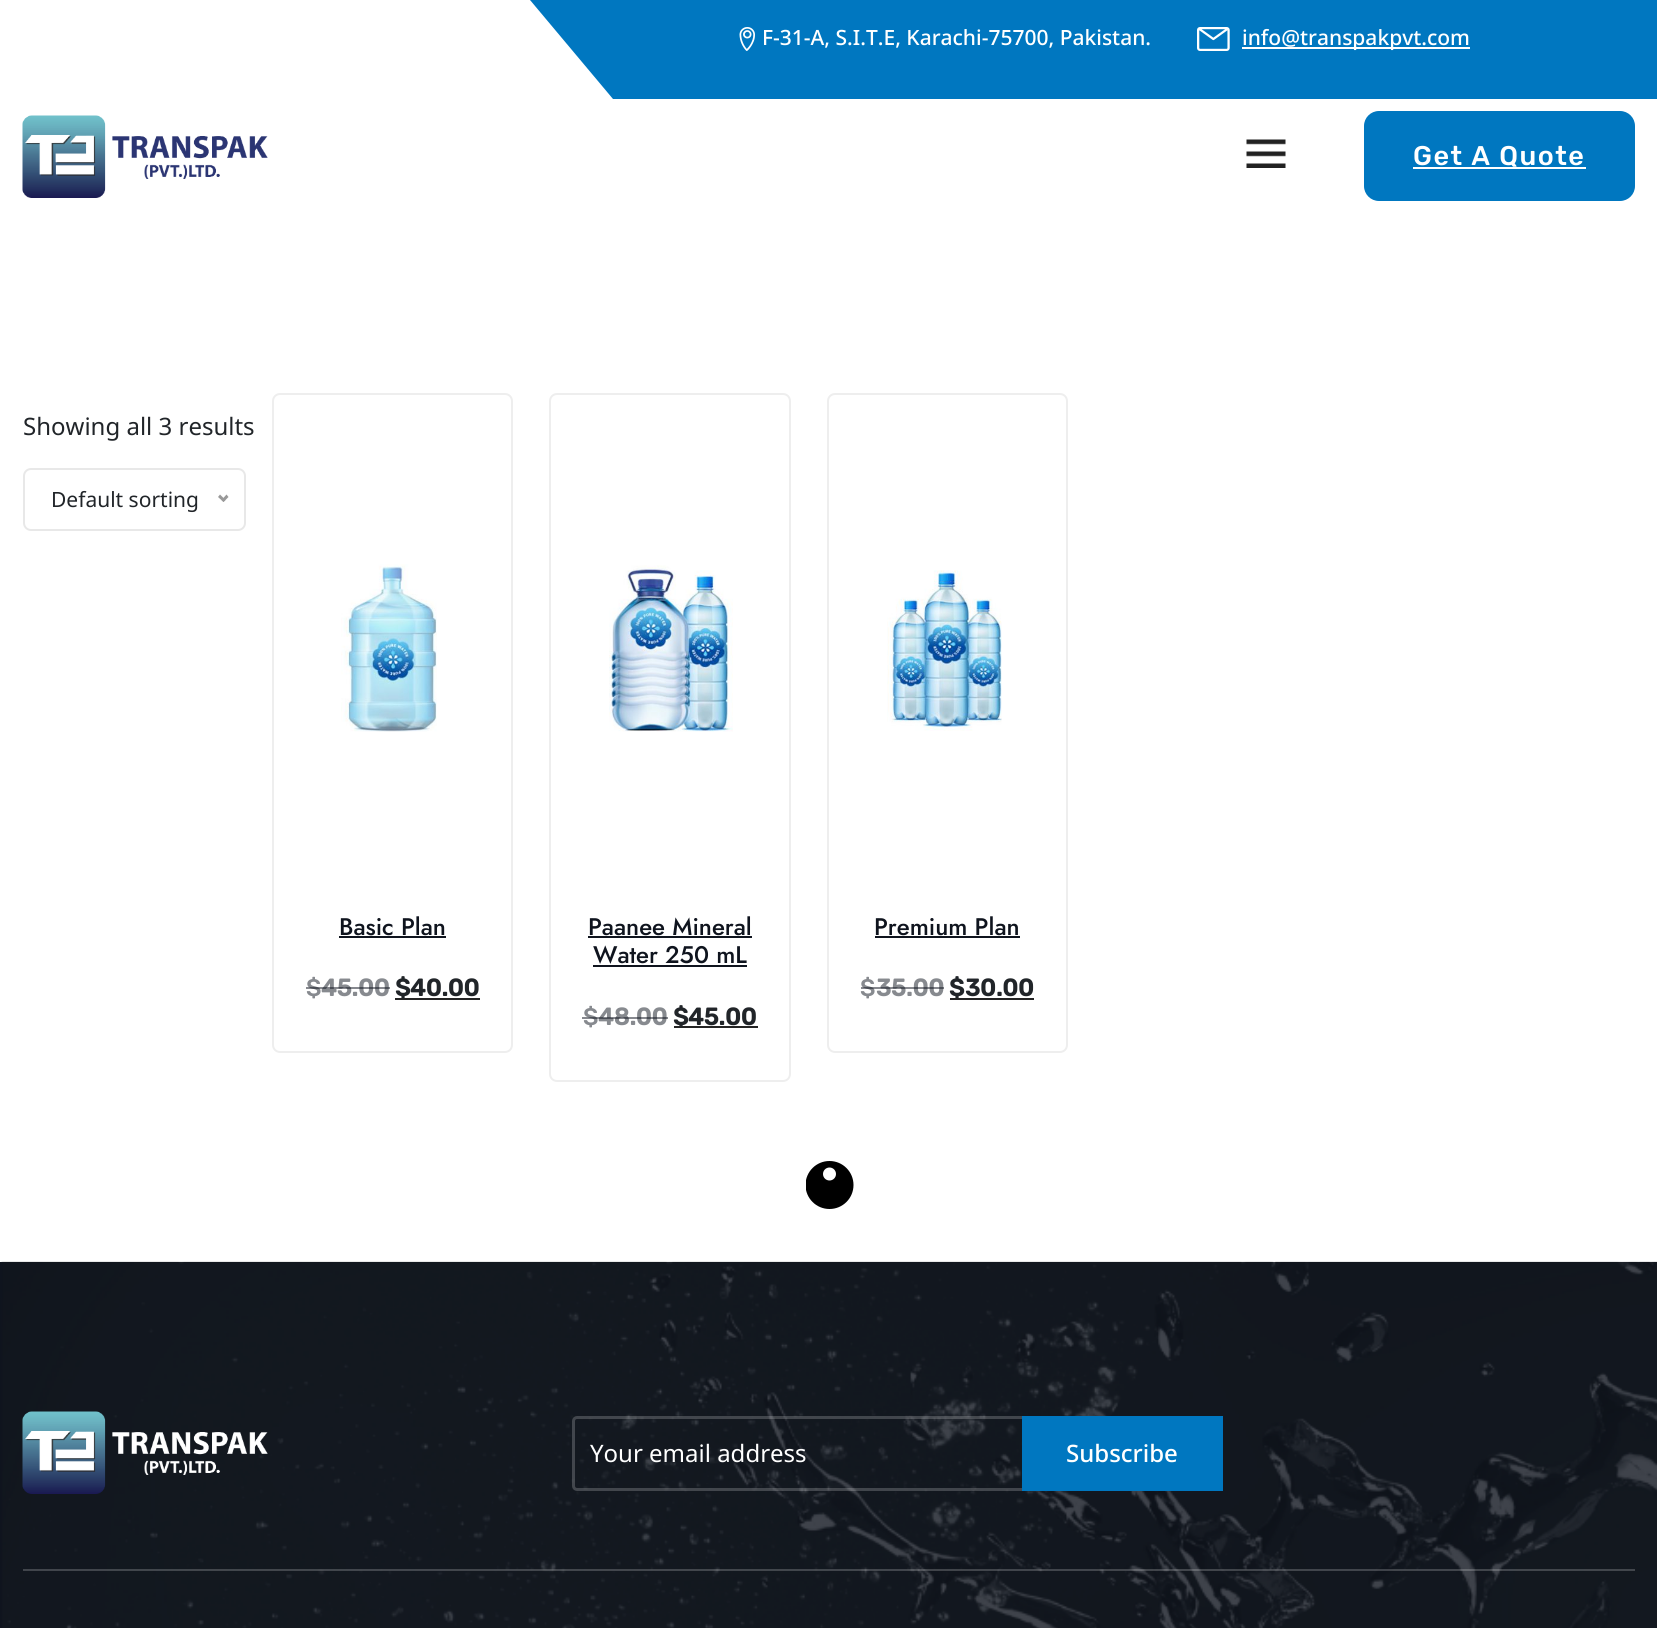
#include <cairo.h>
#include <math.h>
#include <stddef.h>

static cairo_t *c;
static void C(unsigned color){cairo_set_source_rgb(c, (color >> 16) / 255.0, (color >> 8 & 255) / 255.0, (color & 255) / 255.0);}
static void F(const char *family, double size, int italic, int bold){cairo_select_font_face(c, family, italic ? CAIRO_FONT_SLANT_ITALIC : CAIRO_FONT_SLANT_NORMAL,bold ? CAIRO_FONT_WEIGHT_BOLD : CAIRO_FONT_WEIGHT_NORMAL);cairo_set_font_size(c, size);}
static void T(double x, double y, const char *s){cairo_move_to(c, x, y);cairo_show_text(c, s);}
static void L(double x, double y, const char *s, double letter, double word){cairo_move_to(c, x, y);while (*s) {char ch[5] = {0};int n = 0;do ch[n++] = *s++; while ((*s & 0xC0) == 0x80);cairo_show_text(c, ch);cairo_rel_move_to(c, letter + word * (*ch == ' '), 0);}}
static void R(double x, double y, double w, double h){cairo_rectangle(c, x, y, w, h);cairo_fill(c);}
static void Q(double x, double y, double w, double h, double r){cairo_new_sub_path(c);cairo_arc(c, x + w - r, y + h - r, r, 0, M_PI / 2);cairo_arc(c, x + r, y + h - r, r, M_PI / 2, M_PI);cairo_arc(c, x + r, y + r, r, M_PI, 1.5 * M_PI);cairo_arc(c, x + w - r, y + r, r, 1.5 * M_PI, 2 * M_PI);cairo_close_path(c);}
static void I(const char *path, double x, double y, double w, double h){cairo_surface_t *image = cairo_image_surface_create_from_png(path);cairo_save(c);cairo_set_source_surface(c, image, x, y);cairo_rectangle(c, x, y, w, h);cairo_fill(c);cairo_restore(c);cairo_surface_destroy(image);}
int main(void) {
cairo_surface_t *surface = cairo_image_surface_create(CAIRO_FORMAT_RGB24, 1657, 1628);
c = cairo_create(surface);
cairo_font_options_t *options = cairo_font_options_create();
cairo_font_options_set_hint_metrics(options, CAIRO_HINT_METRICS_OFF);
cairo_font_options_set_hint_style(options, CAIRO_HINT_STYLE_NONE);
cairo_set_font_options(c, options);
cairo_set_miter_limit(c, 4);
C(0xffffff);
cairo_paint(c);
C(0x0077c0);
cairo_new_path(c);
cairo_move_to(c,530,0);
cairo_line_to(c,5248,0);
cairo_line_to(c,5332,99);
cairo_line_to(c,613,99);
cairo_close_path(c);
cairo_fill(c);
I("1.png",739,27,16,24);
F("Noto Sans Medium",21,0,0);
C(0xffffff);
T(762,45,"F-31-A, S.I.T.E, Karachi-75700, Pakistan.");
I("2.png",1197,27,33,24);
R(1242,47,228,2);
T(1242,45,"info@transpakpvt.com");
I("3.png",22,115,246,83);
I("4.png",1246,139,40,29);
C(0x0077c0);
Q(1364,111,271,90,15);
cairo_fill(c);
F("Rubik Medium",27,0,0);
C(0xffffff);
L(1413,165,"Get A Quote",1.5,0);
R(1413,167,173,2);
F("Noto Sans",24,0,0);
C(0x212529);
T(23,435,"Showing all 3 results");
Q(24,469,221,61,7);
C(0xe8e8e8);
cairo_stroke(c);
F("Noto Sans",21,0,0);
C(0x212529);
T(51,507,"Default sorting");
C(0x999999);
cairo_new_path(c);
cairo_move_to(c,226.5,494.5);
cairo_line_to(c,228.5,497);
cairo_line_to(c,223.5,502);
cairo_line_to(c,221.5,500);
cairo_close_path(c);
cairo_fill(c);
cairo_new_path(c);
cairo_move_to(c,220,494.5);
cairo_line_to(c,225.5,500);
cairo_line_to(c,223.5,502);
cairo_line_to(c,218,497);
cairo_close_path(c);
cairo_fill(c);
Q(273,394,239,658,7);
C(0xeeeeee);
cairo_stroke(c);
I("5.png",341,564,96,168);
F("Jost Medium",24,0,0);
C(0x0f141e);
T(339,935,"Basic Plan");
R(339,936,107,2);
F("Rubik Medium",24,0,0);
C(0x878a8f);
T(306,996,"$");
cairo_set_source_rgba(c,0.059,0.078,0.118,0.5);
R(306,987,15,2);
F("Rubik",24,0,1);
C(0x878a8f);
T(321,996,"45.00");
cairo_set_source_rgba(c,0.059,0.078,0.118,0.5);
R(321,987,69,2);
C(0x242424);
R(395,998,85,2);
C(0x212529);
T(395,996,"$");
T(410,996,"40.00");
Q(550,394,240,687,7);
C(0xeeeeee);
cairo_stroke(c);
I("6.png",609,565,124,167);
F("Jost Medium",24,0,0);
C(0x0f141e);
T(588,935,"Paanee Mineral");
R(588,936,164,2);
T(593,963,"Water 250 mL");
R(593,965,154,2);
F("Rubik Medium",24,0,0);
C(0x878a8f);
T(583,1025,"$");
cairo_set_source_rgba(c,0.059,0.078,0.118,0.5);
R(582,1017,17,2);
F("Rubik",24,0,1);
C(0x878a8f);
T(598,1025,"48.00");
cairo_set_source_rgba(c,0.059,0.078,0.118,0.5);
R(599,1017,69,2);
C(0x242424);
R(674,1026,84,2);
C(0x212529);
T(673,1025,"$");
T(688,1025,"45.00");
Q(828,394,239,658,7);
C(0xeeeeee);
cairo_stroke(c);
I("7.png",887,570,115,161);
F("Jost Medium",24,0,0);
C(0x0f141e);
T(874,935,"Premium Plan");
R(875,936,145,2);
F("Rubik Medium",24,0,0);
C(0x878a8f);
T(860,996,"$");
cairo_set_source_rgba(c,0.059,0.078,0.118,0.5);
R(861,987,15,2);
F("Rubik",24,0,1);
C(0x878a8f);
T(876,996,"35.00");
cairo_set_source_rgba(c,0.059,0.078,0.118,0.5);
R(876,987,68,2);
C(0x242424);
R(950,998,84,2);
C(0x212529);
T(949,996,"$");
T(965,996,"30.00");
cairo_save(c);
cairo_rectangle(c,806,1161,48,48);
cairo_clip(c);
C(0x000000);
cairo_arc(c,829.5,1185,24,0,2 * M_PI);
cairo_fill(c);
cairo_restore(c);
C(0xffffff);
cairo_arc(c,829.5,1174,6.5,0,2 * M_PI);
cairo_fill(c);
C(0x0f141e);
R(0,1262,1657,366);
I("8.png",1,1261,1656,367);
cairo_set_source_rgba(c,1,1,1,0.2);
R(23,1569,1612,2);
I("9.png",22,1411,246,83);
Q(573.5,1417.5,648,72,3.5);
cairo_set_line_width(c,3);
cairo_stroke(c);
F("Noto Sans",24,0,0);
C(0xffffff);
T(590,1462,"Your email address");
C(0x0077c0);
R(1022,1416,201,75);
F("Noto Sans Medium",24,0,0);
C(0xffffff);
T(1066,1462,"Subscribe");
cairo_surface_write_to_png(surface, "o.png");
cairo_font_options_destroy(options);
cairo_destroy(c);
cairo_surface_destroy(surface);
return 0;
}
